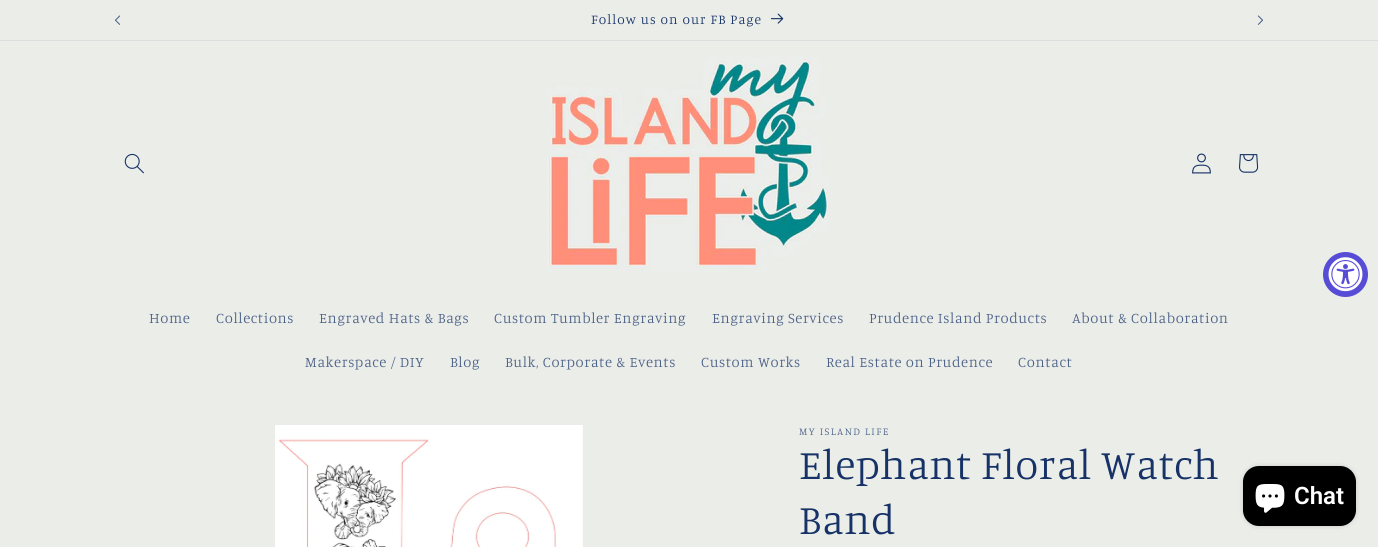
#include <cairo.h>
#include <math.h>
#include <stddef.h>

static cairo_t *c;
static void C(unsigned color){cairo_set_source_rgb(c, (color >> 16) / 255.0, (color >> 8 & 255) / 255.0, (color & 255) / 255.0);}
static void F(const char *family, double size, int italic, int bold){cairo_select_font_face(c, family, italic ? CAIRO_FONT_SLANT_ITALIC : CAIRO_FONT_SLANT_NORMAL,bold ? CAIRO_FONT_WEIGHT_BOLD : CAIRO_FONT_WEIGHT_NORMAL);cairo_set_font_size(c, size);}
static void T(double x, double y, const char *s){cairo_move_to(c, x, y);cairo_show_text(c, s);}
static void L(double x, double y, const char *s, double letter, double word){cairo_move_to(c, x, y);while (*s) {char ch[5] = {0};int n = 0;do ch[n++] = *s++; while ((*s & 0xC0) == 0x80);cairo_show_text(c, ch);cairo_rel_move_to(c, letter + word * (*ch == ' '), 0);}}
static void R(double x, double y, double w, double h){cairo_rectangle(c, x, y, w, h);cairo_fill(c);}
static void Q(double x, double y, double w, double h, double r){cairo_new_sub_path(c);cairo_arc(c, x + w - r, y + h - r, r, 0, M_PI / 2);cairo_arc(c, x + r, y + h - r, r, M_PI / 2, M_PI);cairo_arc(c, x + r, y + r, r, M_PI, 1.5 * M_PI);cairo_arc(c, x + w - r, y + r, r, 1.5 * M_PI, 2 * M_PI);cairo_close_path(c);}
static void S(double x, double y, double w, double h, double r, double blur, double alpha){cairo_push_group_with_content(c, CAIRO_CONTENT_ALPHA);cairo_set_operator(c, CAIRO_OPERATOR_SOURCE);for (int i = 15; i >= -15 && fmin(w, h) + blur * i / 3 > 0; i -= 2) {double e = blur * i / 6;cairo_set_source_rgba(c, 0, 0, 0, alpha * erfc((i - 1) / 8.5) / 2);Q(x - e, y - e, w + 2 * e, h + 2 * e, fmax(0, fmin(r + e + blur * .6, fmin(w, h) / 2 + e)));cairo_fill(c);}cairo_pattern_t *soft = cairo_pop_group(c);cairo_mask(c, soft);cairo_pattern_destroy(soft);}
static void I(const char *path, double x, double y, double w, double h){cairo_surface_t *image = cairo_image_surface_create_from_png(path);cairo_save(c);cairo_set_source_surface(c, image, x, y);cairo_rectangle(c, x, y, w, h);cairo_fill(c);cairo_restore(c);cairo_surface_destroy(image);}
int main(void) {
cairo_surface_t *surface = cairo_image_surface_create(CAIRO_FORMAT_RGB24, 1378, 547);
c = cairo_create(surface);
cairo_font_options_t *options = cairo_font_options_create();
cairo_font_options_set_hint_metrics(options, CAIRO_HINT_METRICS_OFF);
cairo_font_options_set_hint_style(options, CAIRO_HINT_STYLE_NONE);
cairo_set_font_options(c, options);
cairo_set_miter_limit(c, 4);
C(0xebede9);
cairo_paint(c);
C(0xdadedf);
R(0,40,1378,1);
I("1.png",115,15,6,10);
F("Manuale Light",13.6,0,0);
C(0x173266);
L(591,24,"Follow us on our FB Page",1.05,0);
I("2.png",771,13,13,11);
I("3.png",1257,15,6,10);
C(0x574cd5);
cairo_arc(c,1345.5,274.5,22.5,0,2 * M_PI);
cairo_fill(c);
I("4.png",1328,257,35,35);
I("5.png",124,153,20,21);
I("6.png",547,56,282,216);
I("7.png",1192,153,19,21);
I("8.png",1239,154,20,19);
F("Manuale Light",14.75,0,0);
C(0x4c6187);
L(149,323,"Home",.6,0);
L(216,323,"Collections",.6,0);
L(319,323,"Engraved Hats & Bags",.6,0);
L(494,323,"Custom Tumbler Engraving",.6,0);
L(712,323,"Engraving Services",.6,0);
L(869,323,"Prudence Island Products",.6,0);
L(1072,323,"About & Collaboration",.6,0);
L(305,367,"Makerspace / DIY",.6,0);
L(450,367,"Blog",.6,0);
L(505,367,"Bulk, Corporate & Events",.6,0);
L(701,367,"Custom Works",.6,0);
L(826,367,"Real Estate on Prudence",.6,0);
L(1018,367,"Contact",.6,0);
I("9.png",275,425,308,122);
F("Manuale Light",10.5,0,0);
L(799,435,"MY ISLAND LIFE",1.4,0);
F("Manuale Light",42,0,0);
C(0x173266);
L(799,479,"Elephant Floral Watch",.6,0);
L(799,534,"Band",.6,0);
C(0x000000);
S(1243,466,113,60,16,2.5,.15);
C(0x000000);
Q(1243,466,113,60,16);
cairo_fill(c);
I("10.png",1255,484,30,29);
F("Roboto SemiBold",24,0,0);
C(0xffffff);
T(1294,504,"Chat");
cairo_surface_write_to_png(surface, "o.png");
cairo_font_options_destroy(options);
cairo_destroy(c);
cairo_surface_destroy(surface);
return 0;
}
